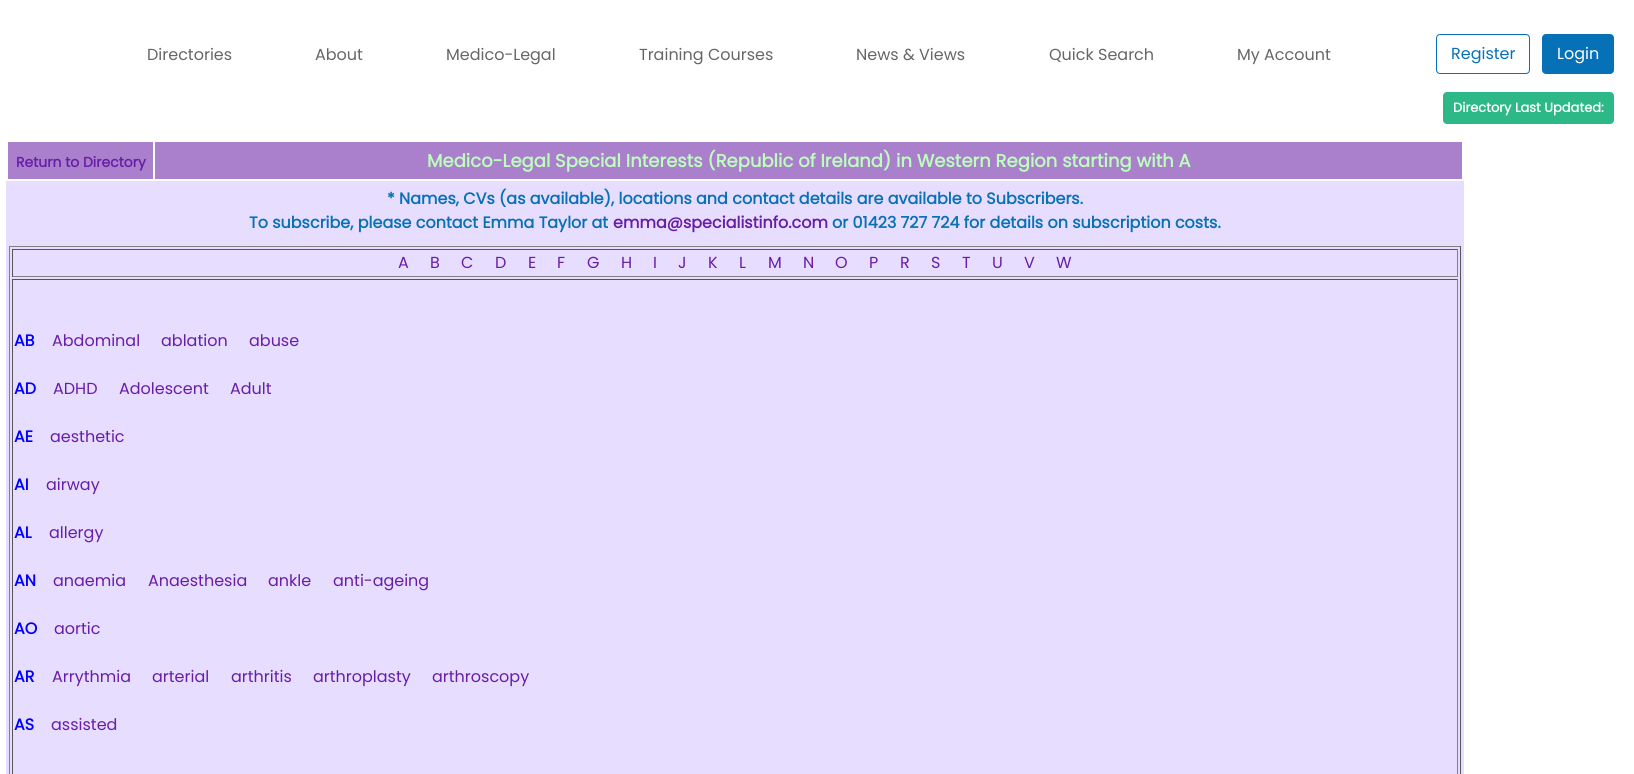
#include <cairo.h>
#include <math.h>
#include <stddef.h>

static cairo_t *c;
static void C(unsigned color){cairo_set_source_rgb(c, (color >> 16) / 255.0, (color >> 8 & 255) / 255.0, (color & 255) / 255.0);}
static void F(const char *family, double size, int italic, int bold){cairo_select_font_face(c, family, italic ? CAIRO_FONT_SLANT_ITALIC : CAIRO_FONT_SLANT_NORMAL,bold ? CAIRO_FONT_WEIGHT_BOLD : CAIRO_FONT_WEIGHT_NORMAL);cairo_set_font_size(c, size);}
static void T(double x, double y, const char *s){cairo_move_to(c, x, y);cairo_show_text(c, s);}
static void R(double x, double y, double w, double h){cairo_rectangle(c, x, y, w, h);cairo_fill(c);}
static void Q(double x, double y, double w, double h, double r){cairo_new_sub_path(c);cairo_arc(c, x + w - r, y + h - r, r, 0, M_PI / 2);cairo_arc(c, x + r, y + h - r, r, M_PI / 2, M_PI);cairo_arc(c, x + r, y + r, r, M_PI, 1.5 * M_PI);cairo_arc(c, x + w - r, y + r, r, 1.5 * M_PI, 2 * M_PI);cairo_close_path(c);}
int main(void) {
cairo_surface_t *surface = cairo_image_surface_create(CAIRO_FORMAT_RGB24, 1634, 774);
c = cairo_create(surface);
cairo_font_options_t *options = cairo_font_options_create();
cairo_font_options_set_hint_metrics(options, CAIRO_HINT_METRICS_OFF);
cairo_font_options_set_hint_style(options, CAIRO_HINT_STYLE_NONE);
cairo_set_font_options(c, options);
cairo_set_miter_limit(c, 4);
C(0xffffff);
cairo_paint(c);
F("Poppins",16,0,0);
C(0x666666);
T(147,60,"Directories");
T(315,60,"About");
T(446,60,"Medico-Legal");
T(639,60,"Training Courses");
T(856,60,"News & Views");
T(1049,60,"Quick Search");
T(1237,60,"My Account");
Q(1436.5,34.5,93,39,3.5);
C(0x0771b8);
cairo_set_line_width(c,1);
cairo_stroke(c);
C(0x0770b7);
T(1451,59,"Register");
C(0x0771b8);
Q(1542.5,34.5,71,39,3.5);
cairo_fill_preserve(c);
cairo_stroke(c);
C(0xffffff);
T(1557,59,"Login");
C(0x2db987);
Q(1443,92,171,32,4);
cairo_fill(c);
F("Poppins",13,0,1);
C(0xffffff);
T(1453,112,"Directory Last Updated:");
C(0xaa80cc);
R(8,142,145,37);
F("Poppins",14,0,1);
C(0x681da8);
T(16,167,"Return to Directory");
C(0xaa80cc);
R(155,142,1307,37);
F("Poppins",18,0,1);
C(0xbbffbb);
T(427,167,"Medico-Legal Special Interests (Republic of Ireland) in Western Region starting with A");
C(0xe6ddff);
R(6,181,1458,593);
F("Poppins",16,0,1);
C(0x0770b7);
T(387,204,"* Names, CVs (as available), locations and contact details are available to Subscribers.");
T(249,228,"To subscribe, please contact Emma Taylor at");
C(0x681da8);
T(613,228,"emma@specialistinfo.com");
C(0x0770b7);
T(832,228,"or 01423 727 724 for details on subscription costs.");
C(0x808080);
R(9,246,1452,1);
C(0x555555);
R(1460,246,1,528);
C(0x808080);
R(9,246,1,528);
C(0x555555);
R(12,249,1446,1);
C(0x808080);
R(1457,249,1,28);
R(12,276,1446,1);
C(0x555555);
R(12,249,1,28);
F("Poppins",16,0,0);
C(0x681da8);
T(398,268,"A");
T(430,268,"B");
T(461,268,"C");
T(495,268,"D");
T(528,268,"E");
T(557,268,"F");
T(587,268,"G");
T(621,268,"H");
T(653,268,"I");
T(678,268,"J");
T(708,268,"K");
T(739,268,"L");
T(768,268,"M");
T(803,268,"N");
T(835,268,"O");
T(869,268,"P");
T(900,268,"R");
T(931,268,"S");
T(962,268,"T");
T(992,268,"U");
T(1024,268,"V");
T(1056,268,"W");
C(0x555555);
R(12,279,1446,1);
C(0x808080);
R(1457,279,1,495);
C(0x555555);
R(12,279,1,495);
F("Poppins",16,0,1);
C(0x0000ff);
T(14,346,"AB");
F("Poppins",16,0,0);
C(0x681da8);
T(52,346,"Abdominal");
T(161,346,"ablation");
T(249,346,"abuse");
F("Poppins",16,0,1);
C(0x0000ff);
T(14,394,"AD");
F("Poppins",16,0,0);
C(0x681da8);
T(53,394,"ADHD");
T(119,394,"Adolescent");
T(230,394,"Adult");
F("Poppins",16,0,1);
C(0x0000ff);
T(14,442,"AE");
F("Poppins",16,0,0);
C(0x681da8);
T(50,442,"aesthetic");
F("Poppins",16,0,1);
C(0x0000ff);
T(14,490,"AI");
F("Poppins",16,0,0);
C(0x681da8);
T(46,490,"airway");
F("Poppins",16,0,1);
C(0x0000ff);
T(14,538,"AL");
F("Poppins",16,0,0);
C(0x681da8);
T(49,538,"allergy");
F("Poppins",16,0,1);
C(0x0000ff);
T(14,586,"AN");
F("Poppins",16,0,0);
C(0x681da8);
T(53,586,"anaemia");
T(148,586,"Anaesthesia");
T(268,586,"ankle");
T(333,586,"anti-ageing");
F("Poppins",16,0,1);
C(0x0000ff);
T(14,634,"AO");
F("Poppins",16,0,0);
C(0x681da8);
T(54,634,"aortic");
F("Poppins",16,0,1);
C(0x0000ff);
T(14,682,"AR");
F("Poppins",16,0,0);
C(0x681da8);
T(52,682,"Arrythmia");
T(152,682,"arterial");
T(231,682,"arthritis");
T(313,682,"arthroplasty");
T(432,682,"arthroscopy");
F("Poppins",16,0,1);
C(0x0000ff);
T(14,730,"AS");
F("Poppins",16,0,0);
C(0x681da8);
T(51,730,"assisted");
cairo_surface_write_to_png(surface, "o.png");
cairo_font_options_destroy(options);
cairo_destroy(c);
cairo_surface_destroy(surface);
return 0;
}
